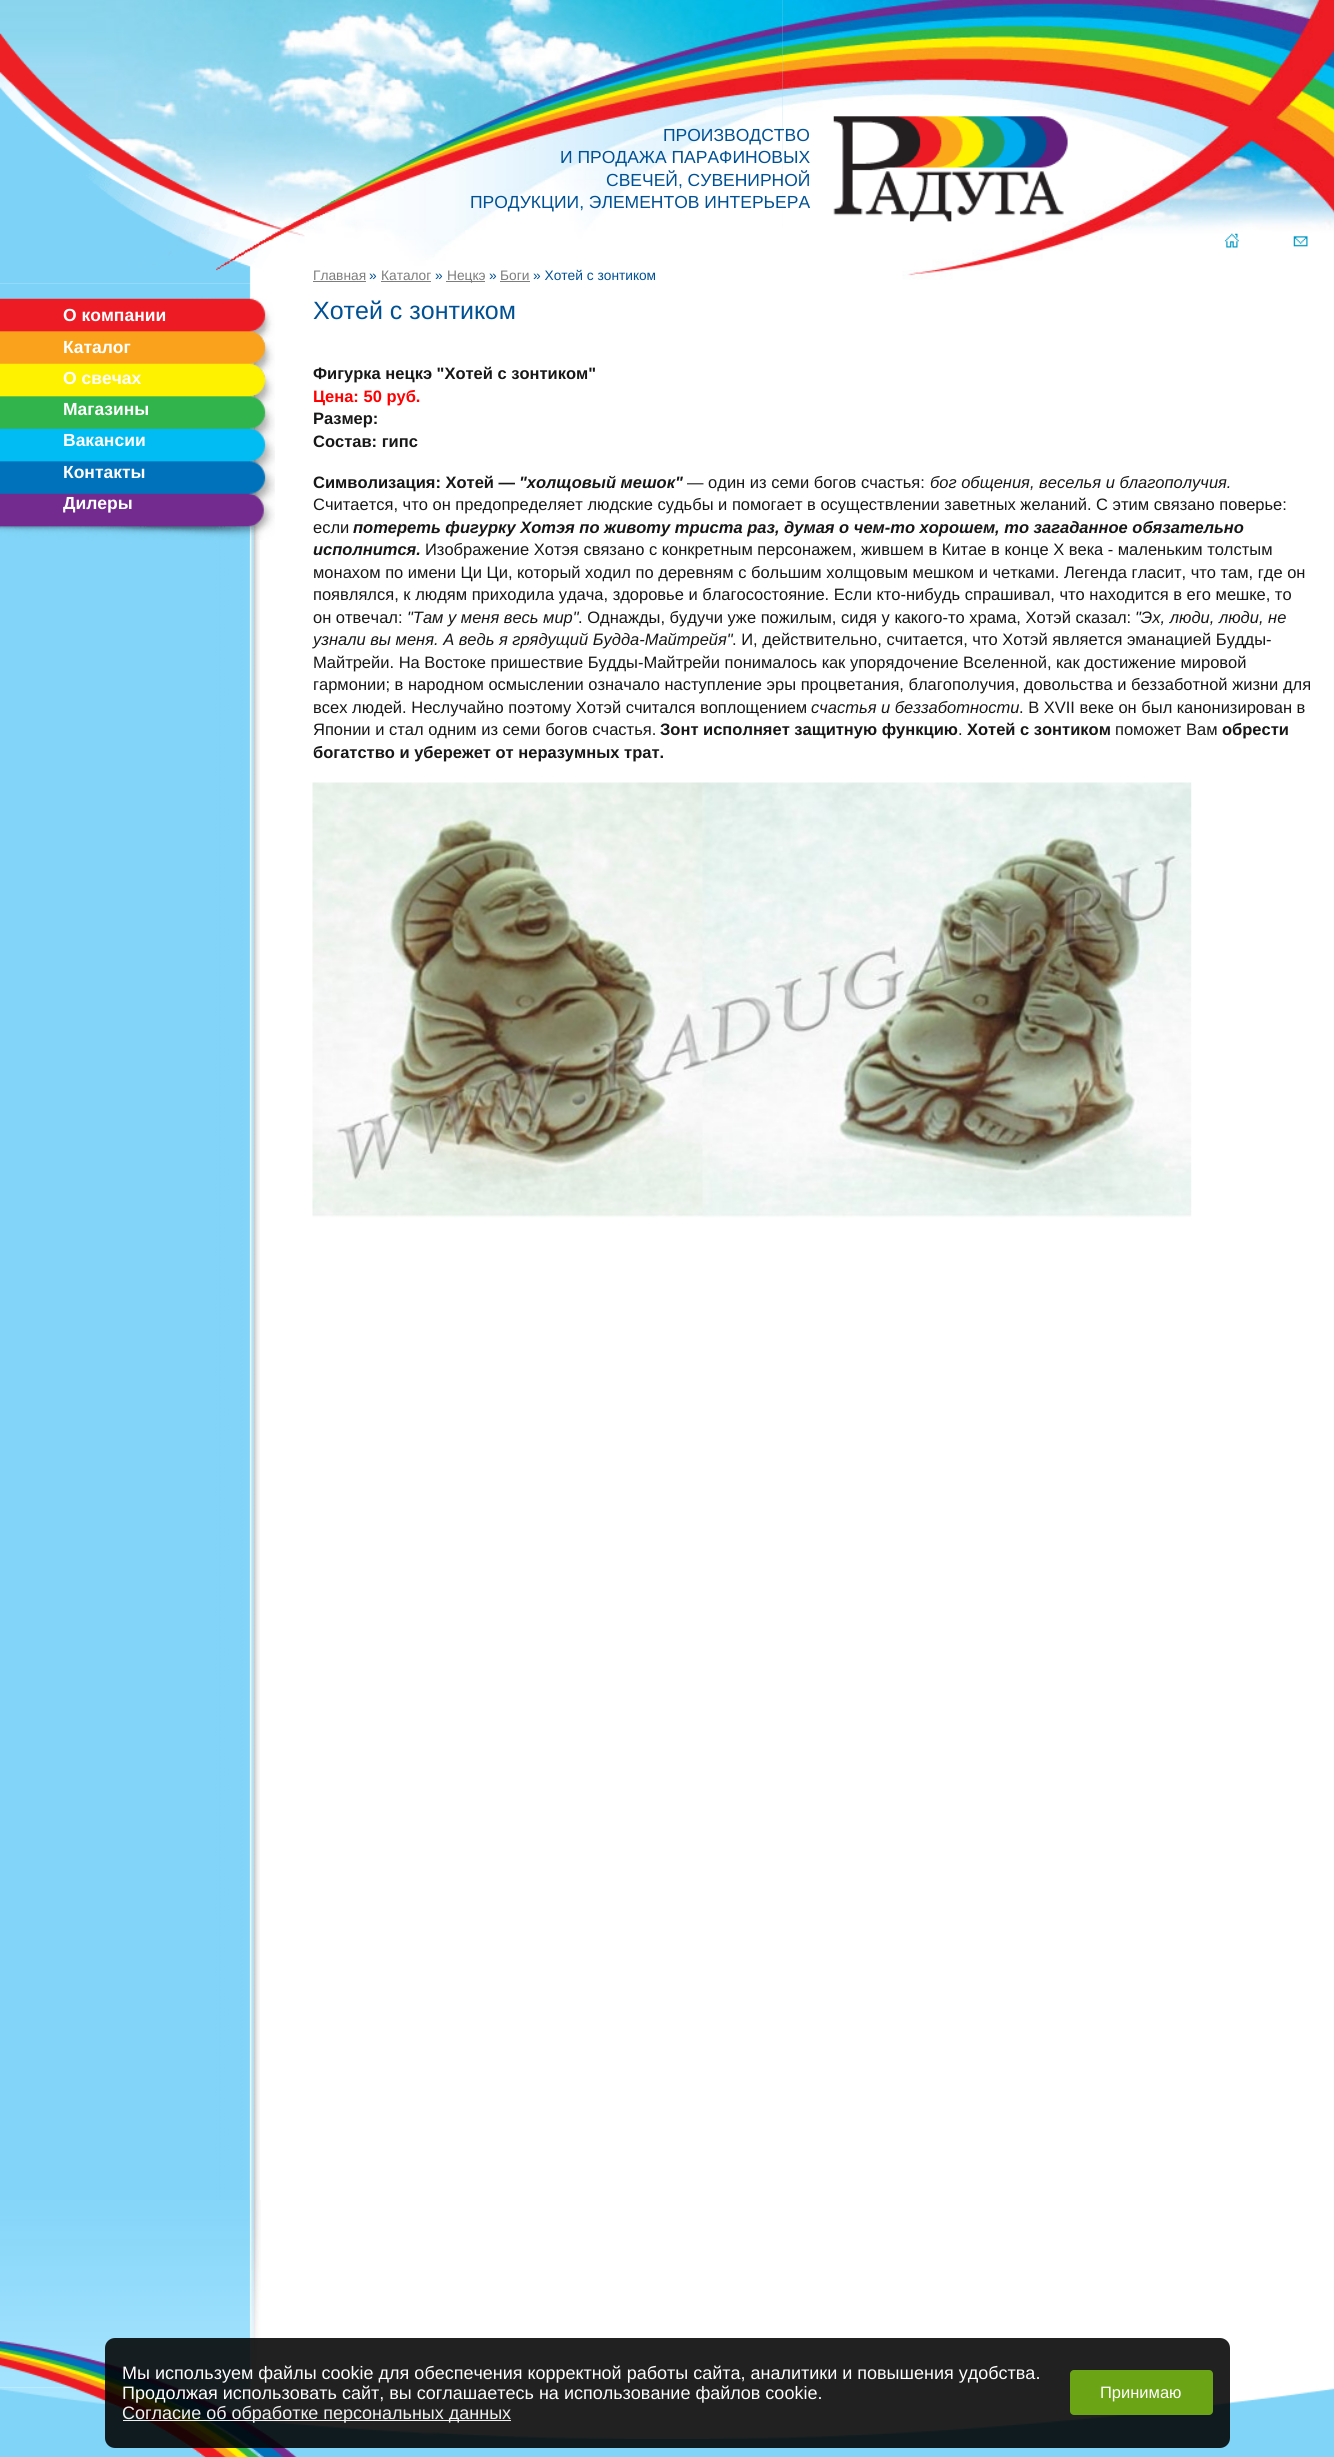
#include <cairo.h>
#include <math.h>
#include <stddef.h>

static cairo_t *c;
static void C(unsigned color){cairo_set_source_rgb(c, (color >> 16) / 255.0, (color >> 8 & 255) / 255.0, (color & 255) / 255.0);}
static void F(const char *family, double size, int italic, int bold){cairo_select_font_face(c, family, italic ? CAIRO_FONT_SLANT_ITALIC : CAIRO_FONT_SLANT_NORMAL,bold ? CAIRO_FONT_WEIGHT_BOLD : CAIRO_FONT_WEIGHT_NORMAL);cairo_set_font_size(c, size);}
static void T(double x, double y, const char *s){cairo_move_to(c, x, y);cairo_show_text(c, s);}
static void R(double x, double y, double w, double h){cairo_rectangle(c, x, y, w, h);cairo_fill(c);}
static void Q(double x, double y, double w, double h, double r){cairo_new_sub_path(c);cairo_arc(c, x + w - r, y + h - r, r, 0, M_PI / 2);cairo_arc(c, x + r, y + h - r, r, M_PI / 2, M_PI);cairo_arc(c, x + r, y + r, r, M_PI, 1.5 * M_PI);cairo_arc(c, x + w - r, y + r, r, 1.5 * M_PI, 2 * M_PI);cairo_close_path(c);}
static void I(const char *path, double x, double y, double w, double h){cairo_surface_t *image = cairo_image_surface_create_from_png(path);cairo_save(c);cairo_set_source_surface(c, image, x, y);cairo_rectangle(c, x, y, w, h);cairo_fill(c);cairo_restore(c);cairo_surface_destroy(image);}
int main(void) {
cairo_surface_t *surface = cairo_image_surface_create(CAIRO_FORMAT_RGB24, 1334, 2457);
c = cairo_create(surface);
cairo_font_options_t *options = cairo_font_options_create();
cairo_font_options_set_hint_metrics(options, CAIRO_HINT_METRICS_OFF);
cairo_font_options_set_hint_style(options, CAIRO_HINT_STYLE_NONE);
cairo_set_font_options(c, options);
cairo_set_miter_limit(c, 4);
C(0x7fd4f7);
cairo_paint(c);
C(0xffffff);
R(0,230,1334,54);
I("1.png",0,0,783,230);
I("3.png",782,0,552,280);
I("2.png",87,0,696,272);
I("4.png",0,33,305,251);
F("Liberation Sans",17.5,0,0);
C(0x005094);
T(663,141,"ПРОИЗВОДСТВО");
T(560,163,"И ПРОДАЖА ПАРАФИНОВЫХ");
T(606,186,"СВЕЧЕЙ, СУВЕНИРНОЙ");
T(470,208,"ПРОДУКЦИИ, ЭЛЕМЕНТОВ ИНТЕРЬЕРА");
I("5.png",833,116,235,106);
I("6.png",216,199,119,72);
I("7.png",1224,233,15,15);
I("8.png",1293,236,15,11);
C(0xffffff);
R(260,284,1074,2103);
I("9.png",0,283,275,257);
F("Liberation Sans",17.5,0,1);
T(63,321,"О компании");
T(63,353,"Каталог");
T(63,384,"О свечах");
T(63,415,"Магазины");
T(63,446,"Вакансии");
T(63,478,"Контакты");
T(63,509,"Дилеры");
I("10.png",0,540,260,1660);
F("Liberation Sans",13.75,0,0);
C(0x7d7d7d);
T(313,280,"Главная");
R(313,281,53,1);
C(0x005094);
T(369,280,"»");
C(0x7d7d7d);
T(381,280,"Каталог");
R(381,281,50,1);
C(0x005094);
T(435,280,"»");
C(0x7d7d7d);
R(446,281,39,1);
T(447,280,"Нецкэ");
C(0x005094);
T(489,280,"»");
C(0x7d7d7d);
T(500,280,"Боги");
R(500,281,30,1);
C(0x005094);
T(533,280,"» Хотей с зонтиком");
F("Liberation Sans",25,0,0);
T(313,319,"Хотей с зонтиком");
F("Liberation Sans",16.5,0,1);
C(0x171717);
T(313,379,"Фигурка нецкэ \"Хотей с зонтиком\"");
C(0xff0000);
T(313,402,"Цена: 50 руб.");
C(0x171717);
T(313,424,"Размер:");
T(313,447,"Состав: гипс");
T(313,488,"Символизация: Хотей —");
F("Liberation Sans",16.5,1,1);
T(519,488,"\"холщовый мешок\"");
F("Liberation Sans",16.5,0,0);
T(687,488,"— один из семи богов счастья:");
F("Liberation Sans",16.5,1,0);
T(930,488,"бог общения, веселья и благополучия.");
F("Liberation Sans",16.5,0,0);
T(313,510,"Считается, что он предопределяет людские судьбы и помогает в осуществлении заветных желаний. С этим связано поверье:");
T(313,533,"если");
F("Liberation Sans",16.5,1,1);
T(353,533,"потереть фигурку Хотэя по животу триста раз, думая о чем-то хорошем, то загаданное обязательно");
T(313,555,"исполнится.");
F("Liberation Sans",16.5,0,0);
T(425,555,"Изображение Хотэя связано с конкретным персонажем, жившем в Китае в конце X века - маленьким толстым");
T(313,578,"монахом по имени Ци Ци, который ходил по деревням с большим холщовым мешком и четками. Легенда гласит, что там, где он");
T(313,600,"появлялся, к людям приходила удача, здоровье и благосостояние. Если кто-нибудь спрашивал, что находится в его мешке, то");
T(313,623,"он отвечал:");
F("Liberation Sans",16.5,1,0);
T(407,623,"\"Там у меня весь мир\"");
F("Liberation Sans",16.5,0,0);
T(578,623,". Однажды, будучи уже пожилым, сидя у какого-то храма, Хотэй сказал:");
F("Liberation Sans",16.5,1,0);
T(1135,623,"\"Эх, люди, люди, не");
T(313,645,"узнали вы меня. А ведь я грядущий Будда-Майтрейя\"");
F("Liberation Sans",16.5,0,0);
T(732,645,". И, действительно, считается, что Хотэй является эманацией Будды-");
T(313,668,"Майтрейи. На Востоке пришествие Будды-Майтрейи понималось как упорядочение Вселенной, как достижение мировой");
T(313,690,"гармонии; в народном осмыслении означало наступление эры процветания, благополучия, довольства и беззаботной жизни для");
T(313,713,"всех людей. Неслучайно поэтому Хотэй считался воплощением");
F("Liberation Sans",16.5,1,0);
T(811,713,"счастья и беззаботности");
F("Liberation Sans",16.5,0,0);
T(1019,713,". В XVII веке он был канонизирован в");
T(313,735,"Японии и стал одним из семи богов счастья.");
F("Liberation Sans",16.5,0,1);
T(660,735,"Зонт исполняет защитную функцию");
F("Liberation Sans",16.5,0,0);
T(958,735,".");
F("Liberation Sans",16.5,0,1);
T(967,735,"Хотей с зонтиком");
F("Liberation Sans",16.5,0,0);
T(1115,735,"поможет Вам");
F("Liberation Sans",16.5,0,1);
T(1222,735,"обрести");
T(313,758,"богатство и убережет от неразумных трат.");
I("11.png",312,782,880,436);
C(0xffffff);
R(0,2387,1334,52);
I("14.png",0,2387,625,52);
I("12.png",0,2200,261,188);
I("13.png",0,2341,298,116);
I("15.png",710,2388,624,51);
cairo_set_source_rgba(c,0,0,0,0.87);
Q(105,2338,1125,110,10);
cairo_fill(c);
F("Liberation Sans",18,0,0);
C(0xffffff);
T(122,2379,"Мы используем файлы cookie для обеспечения корректной работы сайта, аналитики и повышения удобства.");
T(122,2399,"Продолжая использовать сайт, вы соглашаетесь на использование файлов cookie.");
C(0xf1f1f1);
R(123,2420,388,1);
T(122,2419,"Согласие об обработке персональных данных");
C(0x6ba414);
Q(1070,2370,143,45,4);
cairo_fill(c);
F("Liberation Sans",16.5,0,0);
C(0xffffff);
T(1100,2398,"Принимаю");
cairo_surface_write_to_png(surface, "o.png");
cairo_font_options_destroy(options);
cairo_destroy(c);
cairo_surface_destroy(surface);
return 0;
}
